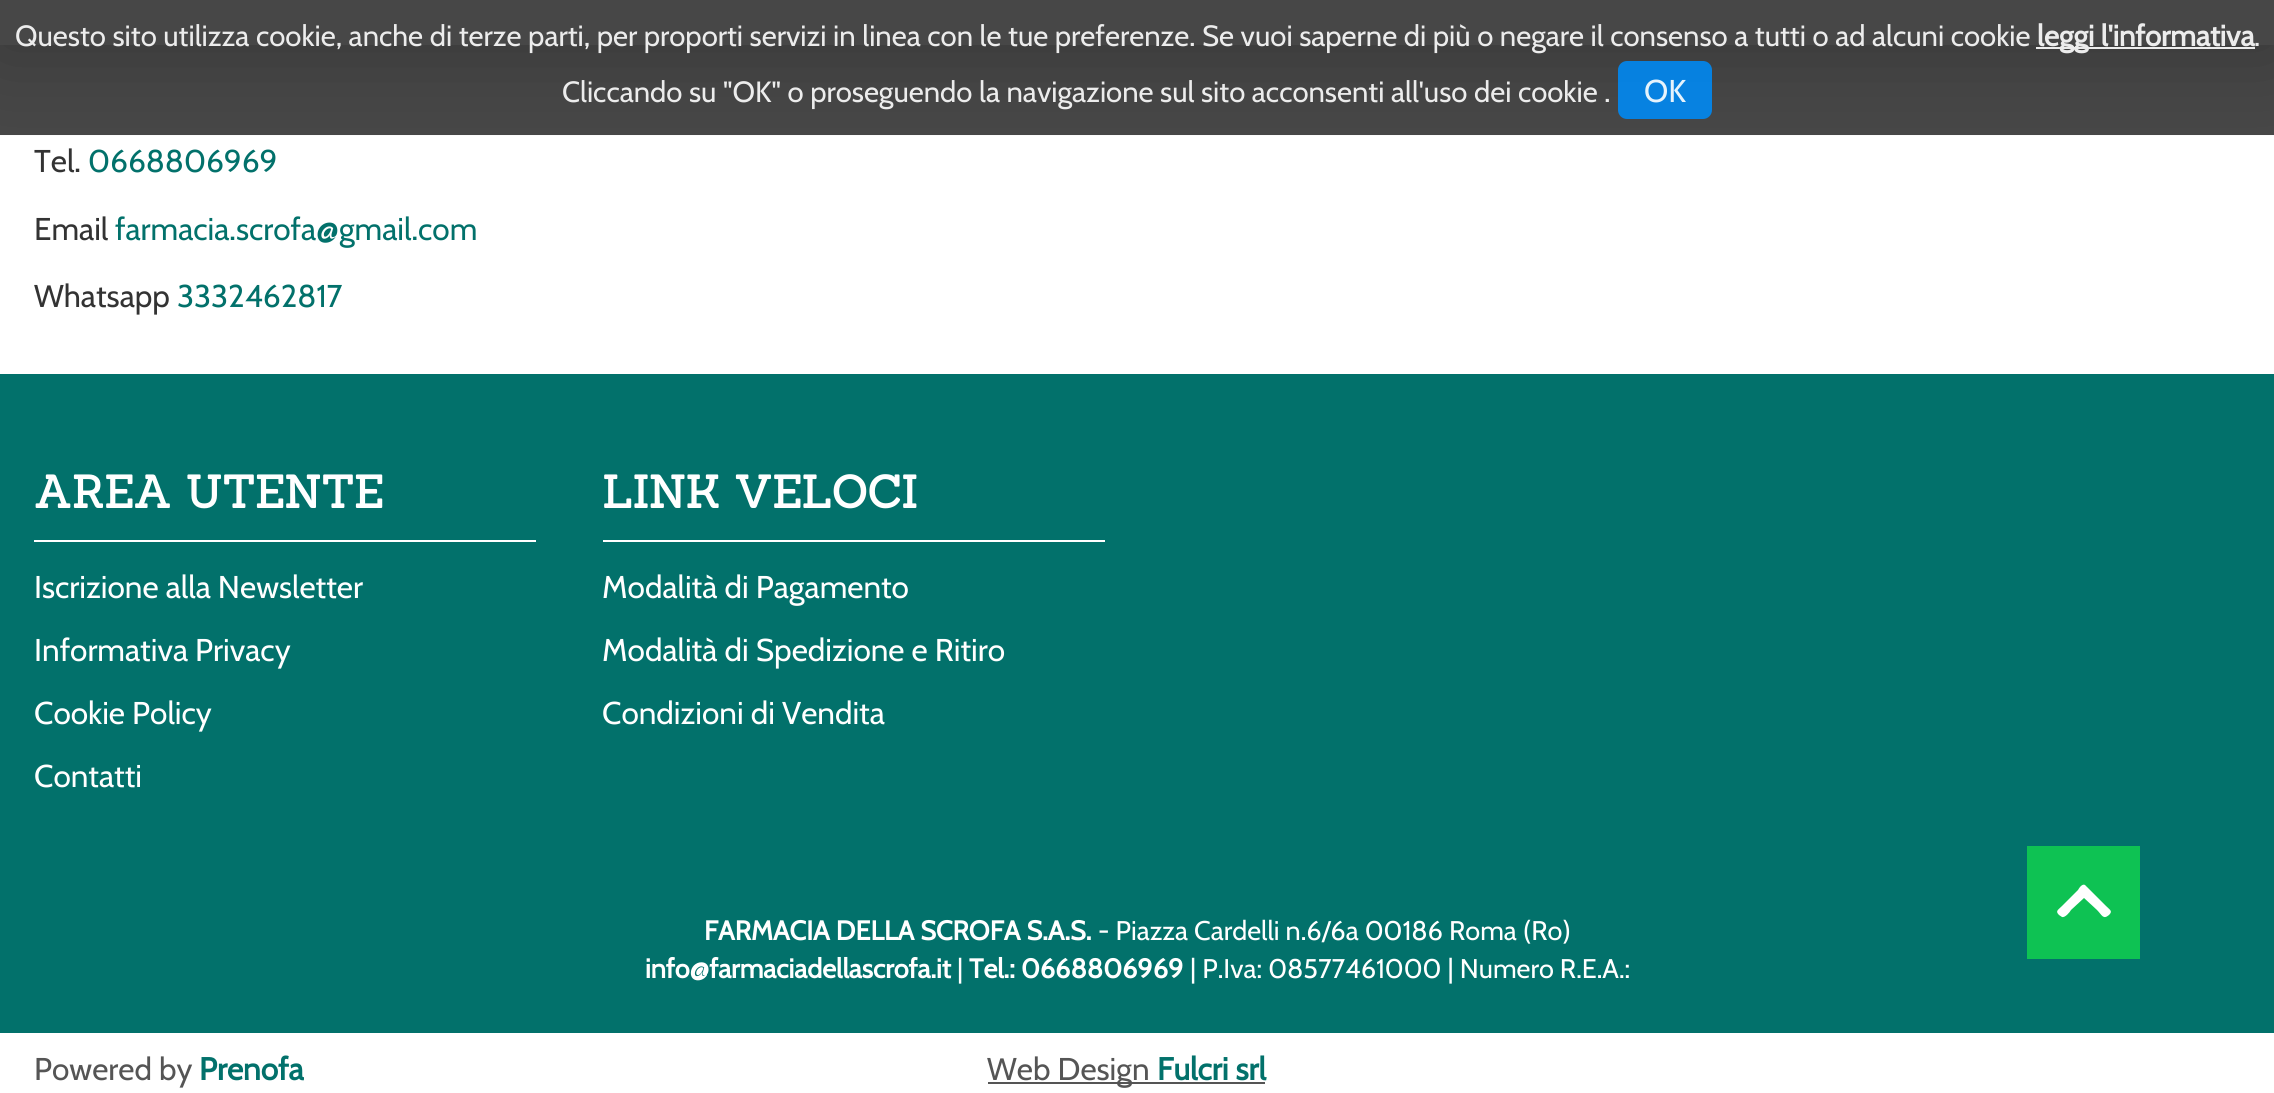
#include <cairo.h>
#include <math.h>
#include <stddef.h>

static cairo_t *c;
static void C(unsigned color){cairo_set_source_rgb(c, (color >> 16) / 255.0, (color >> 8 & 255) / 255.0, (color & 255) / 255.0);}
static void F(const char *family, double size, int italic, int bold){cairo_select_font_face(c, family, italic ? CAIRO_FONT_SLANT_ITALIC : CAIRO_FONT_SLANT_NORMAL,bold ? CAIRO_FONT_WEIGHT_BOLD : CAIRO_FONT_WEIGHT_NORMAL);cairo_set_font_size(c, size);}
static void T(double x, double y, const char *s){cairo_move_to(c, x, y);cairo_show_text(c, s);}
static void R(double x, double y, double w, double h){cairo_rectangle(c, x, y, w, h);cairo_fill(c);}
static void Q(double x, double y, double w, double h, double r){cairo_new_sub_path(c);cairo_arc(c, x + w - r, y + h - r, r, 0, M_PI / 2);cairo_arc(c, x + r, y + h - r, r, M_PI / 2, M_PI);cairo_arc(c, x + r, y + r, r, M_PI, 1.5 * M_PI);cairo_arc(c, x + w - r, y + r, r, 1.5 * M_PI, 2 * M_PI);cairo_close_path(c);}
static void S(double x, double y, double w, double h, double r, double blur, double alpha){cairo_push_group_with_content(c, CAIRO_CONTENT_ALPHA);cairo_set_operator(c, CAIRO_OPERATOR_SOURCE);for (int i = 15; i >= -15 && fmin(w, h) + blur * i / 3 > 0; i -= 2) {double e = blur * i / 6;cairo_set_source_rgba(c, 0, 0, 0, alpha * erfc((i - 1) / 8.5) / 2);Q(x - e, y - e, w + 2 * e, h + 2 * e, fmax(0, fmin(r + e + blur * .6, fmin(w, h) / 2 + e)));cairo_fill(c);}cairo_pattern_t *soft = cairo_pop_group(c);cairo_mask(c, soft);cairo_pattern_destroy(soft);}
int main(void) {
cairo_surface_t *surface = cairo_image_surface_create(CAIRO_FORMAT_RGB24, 2274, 1093);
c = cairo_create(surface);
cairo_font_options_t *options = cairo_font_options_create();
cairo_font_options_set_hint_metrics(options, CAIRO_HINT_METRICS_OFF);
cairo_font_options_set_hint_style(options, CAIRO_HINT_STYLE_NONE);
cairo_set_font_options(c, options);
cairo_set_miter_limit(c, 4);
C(0xffffff);
cairo_paint(c);
cairo_save(c);
cairo_rectangle(c,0,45,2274,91);
cairo_clip(c);
C(0x444444);
S(0,0,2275,45,0,45,1);
cairo_restore(c);
cairo_set_source_rgba(c,0.2,0.2,0.2,0.9);
R(0,0,2274,135);
F("Cabin",29.25,0,0);
C(0xececec);
T(15,46,"Questo sito utilizza cookie, anche di terze parti, per proporti servizi in linea con le tue preferenze. Se vuoi saperne di più o negare il consenso a tutti o ad alcuni cookie");
R(2036,47,219,2);
F("Cabin",29.25,0,1);
T(2037,46,"leggi l'informativa");
F("Cabin",29.25,0,0);
T(2254,46,".");
T(562,102,"Cliccando su \"OK\" o proseguendo la navigazione sul sito acconsenti all'uso dei cookie .");
cairo_set_source_rgba(c,0,0.537,0.949,0.9);
Q(1618,61,94,58,9);
cairo_fill(c);
F("Cabin",31.5,0,0);
C(0xe6f3fc);
T(1644,102,"OK");
C(0x333333);
T(34,172,"Tel.");
C(0x02716b);
T(88,172,"0668806969");
C(0x333333);
T(34,240,"Email");
C(0x02716b);
T(115,240,"farmacia.scrofa@gmail.com");
C(0x333333);
T(34,307,"Whatsapp");
C(0x02716b);
T(177,307,"3332462817");
R(0,374,2274,659);
C(0xffffff);
R(34,540,502,2);
F("Sanchez",45,0,1);
T(34,508,"AREA UTENTE");
F("Cabin",31.5,0,0);
T(34,598,"Iscrizione alla Newsletter");
T(34,661,"Informativa Privacy");
T(34,724,"Cookie Policy");
T(34,787,"Contatti");
R(603,540,502,2);
F("Sanchez",45,0,1);
T(602,508,"LINK VELOCI");
F("Cabin",31.5,0,0);
T(602,598,"Modalità di Pagamento");
T(602,661,"Modalità di Spedizione e Ritiro");
T(602,724,"Condizioni di Vendita");
C(0x0ec253);
R(2027,846,113,113);
C(0xffffff);
cairo_new_path(c);
cairo_move_to(c,2086,886);
cairo_line_to(c,2106,906);
cairo_curve_to(c,2110,910,2113,911,2109,915);
cairo_curve_to(c,2103,920,2102,915,2097,910);
cairo_line_to(c,2084,898);
cairo_line_to(c,2071,910);
cairo_curve_to(c,2070,912,2065,918,2062,917);
cairo_line_to(c,2059,915);
cairo_curve_to(c,2055,911,2058,910,2062,906);
cairo_line_to(c,2078,890);
cairo_curve_to(c,2079,888,2083,882,2086,886);
cairo_close_path(c);
cairo_fill(c);
F("Cabin",27,0,1);
T(704,940,"FARMACIA DELLA SCROFA S.A.S.");
F("Cabin",27,0,0);
T(1098,940,"- Piazza Cardelli n.6/6a 00186 Roma (Ro)");
F("Cabin",27,0,1);
T(645,978,"info@farmaciadellascrofa.it");
F("Cabin",27,0,0);
T(957,978,"|");
F("Cabin",27,0,1);
T(969,978,"Tel.: 0668806969");
F("Cabin",27,0,0);
T(1190,978,"| P.Iva: 08577461000 | Numero R.E.A.:");
F("Cabin",31.5,0,0);
C(0x555555);
T(34,1080,"Powered by");
F("Cabin",31.5,0,1);
C(0x02716b);
T(199,1080,"Prenofa");
C(0x555555);
R(988,1082,277,2);
F("Cabin",31.5,0,0);
T(987,1080,"Web Design");
F("Cabin",31.5,0,1);
C(0x02716b);
T(1157,1080,"Fulcri srl");
cairo_surface_write_to_png(surface, "o.png");
cairo_font_options_destroy(options);
cairo_destroy(c);
cairo_surface_destroy(surface);
return 0;
}
